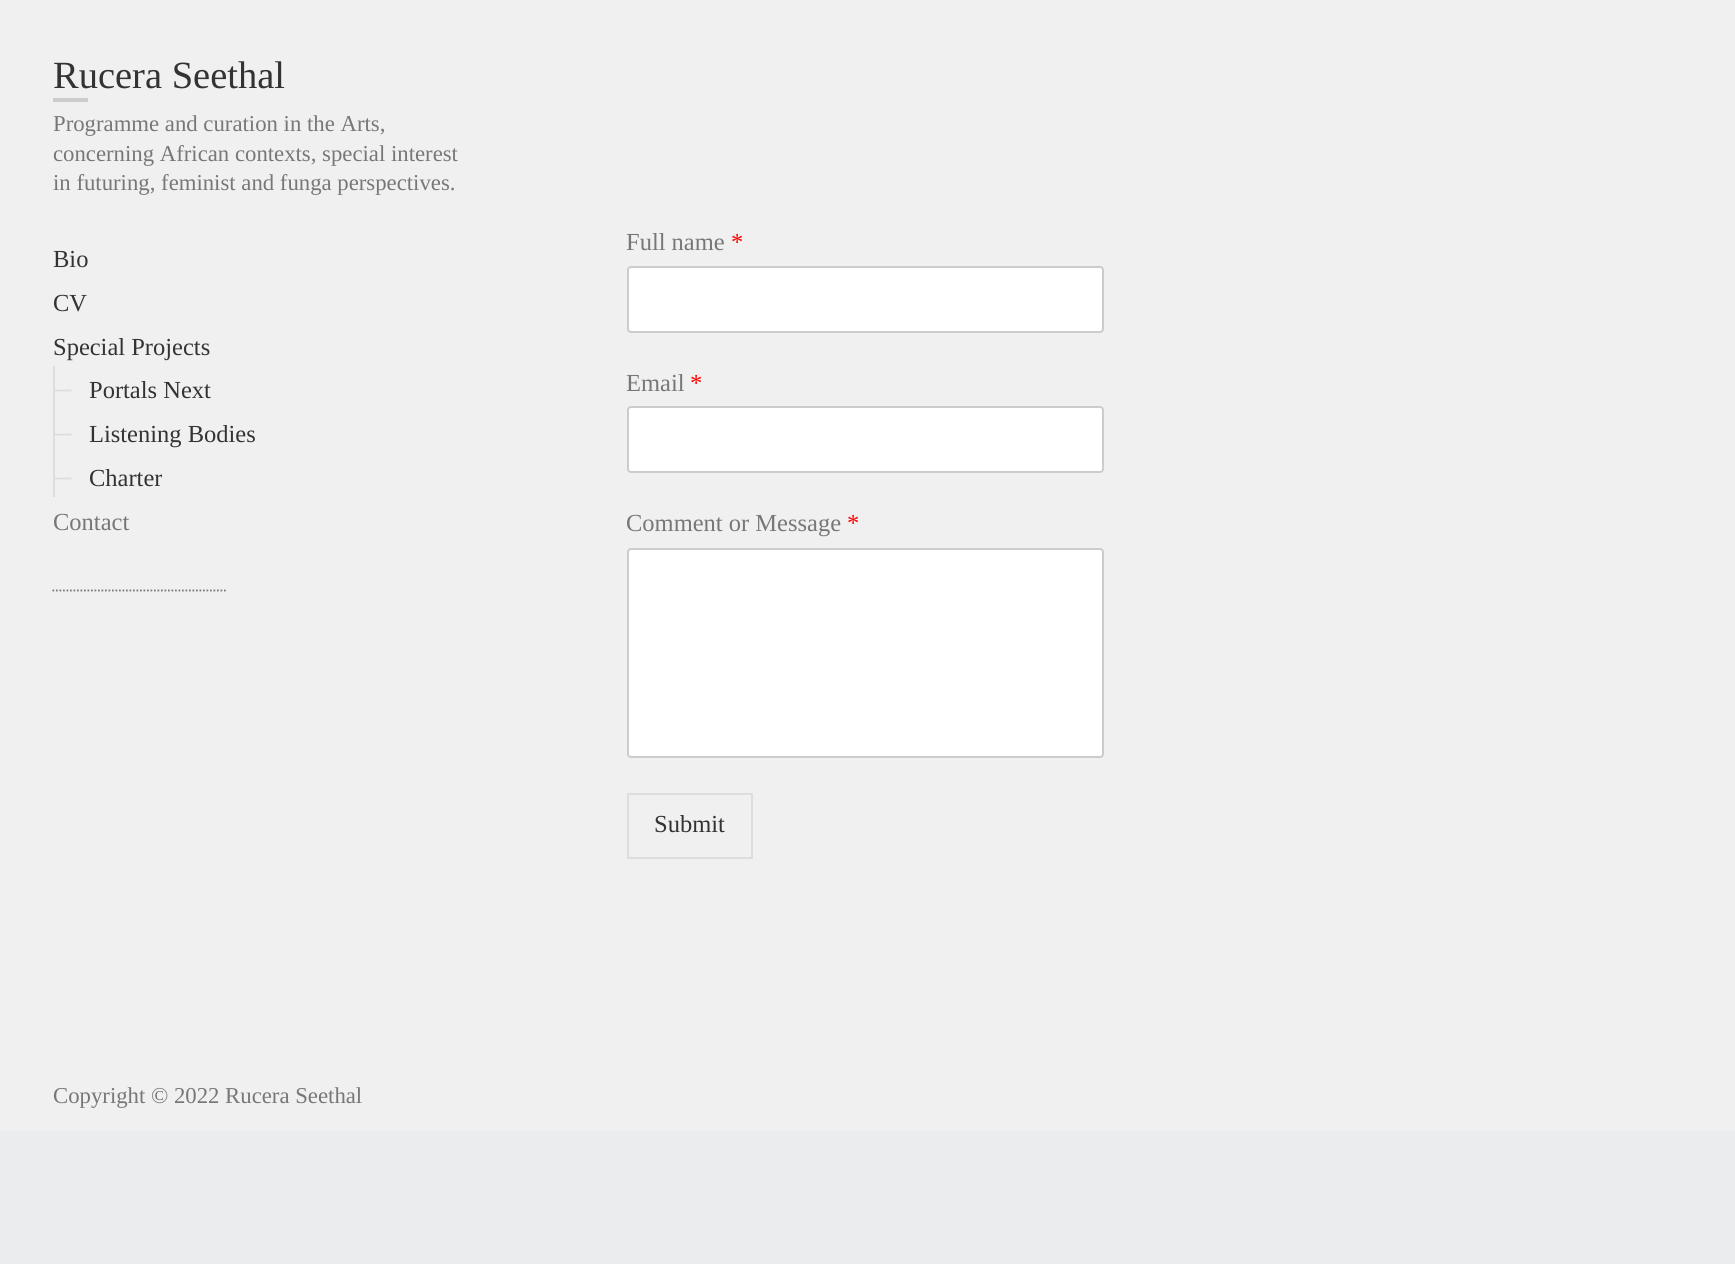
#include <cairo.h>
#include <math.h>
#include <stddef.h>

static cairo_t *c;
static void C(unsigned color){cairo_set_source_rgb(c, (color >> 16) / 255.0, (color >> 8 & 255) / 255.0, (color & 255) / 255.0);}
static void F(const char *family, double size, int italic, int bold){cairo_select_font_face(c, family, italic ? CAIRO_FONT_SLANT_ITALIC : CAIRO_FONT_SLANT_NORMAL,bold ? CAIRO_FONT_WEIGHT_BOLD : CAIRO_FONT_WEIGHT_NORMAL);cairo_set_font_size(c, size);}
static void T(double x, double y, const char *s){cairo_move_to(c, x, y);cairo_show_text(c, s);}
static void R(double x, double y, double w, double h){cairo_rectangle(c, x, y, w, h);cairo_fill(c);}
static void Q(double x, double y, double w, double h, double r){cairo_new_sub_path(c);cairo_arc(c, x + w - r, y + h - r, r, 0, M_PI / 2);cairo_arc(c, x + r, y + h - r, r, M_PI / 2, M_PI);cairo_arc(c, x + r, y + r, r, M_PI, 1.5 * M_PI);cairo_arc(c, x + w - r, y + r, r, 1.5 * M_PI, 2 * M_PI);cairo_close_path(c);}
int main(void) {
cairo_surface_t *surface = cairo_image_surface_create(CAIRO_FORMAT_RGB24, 1735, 1264);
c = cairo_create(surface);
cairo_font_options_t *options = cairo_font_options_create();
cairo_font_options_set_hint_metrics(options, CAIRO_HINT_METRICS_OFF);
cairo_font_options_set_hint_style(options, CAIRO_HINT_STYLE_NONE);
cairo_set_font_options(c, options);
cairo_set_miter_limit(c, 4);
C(0xeaecee);
cairo_paint(c);
C(0xf0f0f0);
R(0,0,1735,1131);
F("Liberation Serif",38.5,0,0);
C(0x333333);
T(53,88,"Rucera Seethal");
C(0xcccccc);
R(53,98,35,4);
F("Liberation Serif",22.75,0,0);
C(0x777777);
T(53,131,"Programme and curation in the Arts,");
T(53,161,"concerning African contexts, special interest");
T(53,190,"in futuring, feminist and funga perspectives.");
F("Liberation Serif",24.5,0,0);
C(0x333333);
T(53,267,"Bio");
T(53,311,"CV");
T(53,355,"Special Projects");
C(0xdddddd);
R(53,366,2,131);
T(54,398,"─");
C(0x333333);
T(89,398,"Portals Next");
C(0xdddddd);
T(54,442,"─");
C(0x333333);
T(89,442,"Listening Bodies");
C(0xdddddd);
T(54,486,"─");
C(0x333333);
T(89,486,"Charter");
C(0x777777);
T(53,530,"Contact");
cairo_new_path(c);
cairo_move_to(c,52.5,590.5);
cairo_line_to(c,227.5,590.5);
cairo_set_line_width(c,1.8);
cairo_set_dash(c,(double[]){1.75,1.75},2,0);
cairo_stroke(c);
T(626,250,"Full name");
C(0xff0000);
T(731,250,"*");
C(0xffffff);
Q(628,267,475,65,3);
cairo_fill_preserve(c);
C(0xcccccc);
cairo_set_line_width(c,2);
cairo_set_dash(c,NULL,0,0);
cairo_stroke(c);
C(0x777777);
T(626,391,"Email");
C(0xff0000);
T(690,391,"*");
C(0xffffff);
Q(628,407,475,65,3);
cairo_fill_preserve(c);
C(0xcccccc);
cairo_stroke(c);
cairo_save(c);
cairo_rectangle(c,627,210,1004,726);
cairo_clip(c);
C(0x777777);
T(626,531,"Comment or Message");
cairo_restore(c);
C(0xff0000);
T(847,531,"*");
C(0xffffff);
Q(628,549,475,208,3);
cairo_fill_preserve(c);
C(0xcccccc);
cairo_stroke(c);
cairo_rectangle(c,628,794,124,64);
C(0xdddddd);
cairo_stroke(c);
C(0x333333);
T(654,832,"Submit");
F("Liberation Serif",22.75,0,0);
C(0x777777);
T(53,1103,"Copyright © 2022 Rucera Seethal");
cairo_surface_write_to_png(surface, "o.png");
cairo_font_options_destroy(options);
cairo_destroy(c);
cairo_surface_destroy(surface);
return 0;
}
